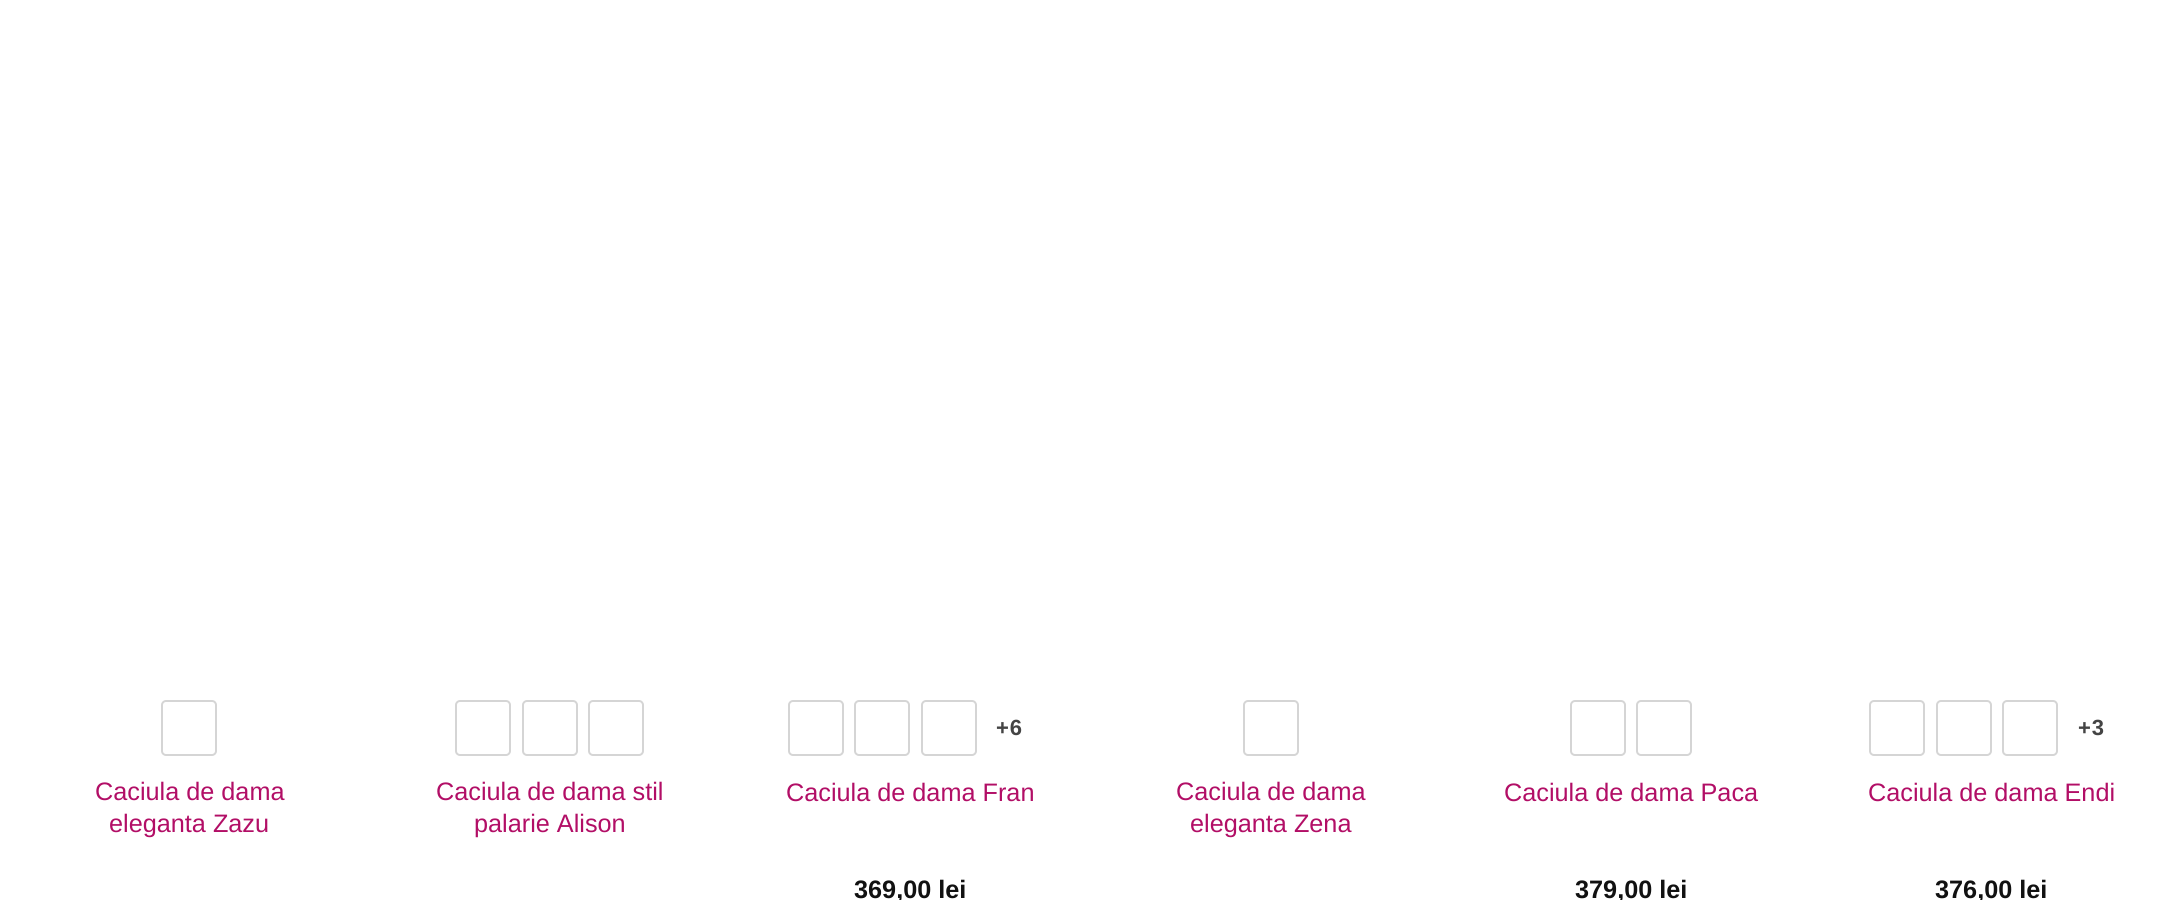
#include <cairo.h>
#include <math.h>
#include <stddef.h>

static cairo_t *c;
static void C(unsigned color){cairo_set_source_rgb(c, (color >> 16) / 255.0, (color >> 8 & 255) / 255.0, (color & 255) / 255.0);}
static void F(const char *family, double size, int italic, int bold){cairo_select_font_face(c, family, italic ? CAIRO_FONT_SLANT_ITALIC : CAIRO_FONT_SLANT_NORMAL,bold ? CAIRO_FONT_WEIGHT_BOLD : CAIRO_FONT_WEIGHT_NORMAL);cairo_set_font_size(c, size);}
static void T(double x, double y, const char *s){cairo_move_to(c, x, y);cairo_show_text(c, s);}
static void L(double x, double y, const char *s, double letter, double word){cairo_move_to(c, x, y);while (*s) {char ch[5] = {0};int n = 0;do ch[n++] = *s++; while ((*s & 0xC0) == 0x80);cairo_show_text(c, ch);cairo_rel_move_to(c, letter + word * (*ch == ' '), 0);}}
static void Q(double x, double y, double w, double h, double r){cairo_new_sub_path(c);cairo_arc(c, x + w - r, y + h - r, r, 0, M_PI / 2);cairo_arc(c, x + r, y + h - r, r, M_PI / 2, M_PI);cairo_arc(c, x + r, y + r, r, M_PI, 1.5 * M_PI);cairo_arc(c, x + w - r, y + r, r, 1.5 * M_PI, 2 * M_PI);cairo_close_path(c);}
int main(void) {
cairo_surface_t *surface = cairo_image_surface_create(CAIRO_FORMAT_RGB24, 2180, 900);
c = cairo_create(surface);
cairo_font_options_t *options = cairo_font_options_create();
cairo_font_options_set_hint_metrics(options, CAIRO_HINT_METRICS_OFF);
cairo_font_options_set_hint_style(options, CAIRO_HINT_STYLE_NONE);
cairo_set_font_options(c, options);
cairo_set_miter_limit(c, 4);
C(0xffffff);
cairo_paint(c);
Q(162,701,54,54,4);
C(0xd5d5d5);
cairo_stroke(c);
F("Liberation Sans",25.25,0,0);
C(0xb20e66);
T(95,800,"Caciula de dama");
T(109,832,"eleganta Zazu");
Q(456,701,54,54,4);
C(0xd5d5d5);
cairo_stroke(c);
Q(523,701,54,54,4);
cairo_stroke(c);
Q(589,701,54,54,4);
cairo_stroke(c);
C(0xb20e66);
T(436,800,"Caciula de dama stil");
T(474,832,"palarie Alison");
Q(789,701,54,54,4);
C(0xd5d5d5);
cairo_stroke(c);
Q(855,701,54,54,4);
cairo_stroke(c);
Q(922,701,54,54,4);
cairo_stroke(c);
F("Liberation Sans",22,0,1);
C(0x444444);
L(996,735,"+6",1,0);
F("Liberation Sans",25.25,0,0);
C(0xb20e66);
T(786,801,"Caciula de dama Fran");
F("Liberation Sans",25.25,0,1);
C(0x111111);
T(854,898,"369,00 lei");
Q(1244,701,54,54,4);
C(0xd5d5d5);
cairo_stroke(c);
F("Liberation Sans",25.25,0,0);
C(0xb20e66);
T(1176,800,"Caciula de dama");
T(1190,832,"eleganta Zena");
Q(1571,701,54,54,4);
C(0xd5d5d5);
cairo_stroke(c);
Q(1637,701,54,54,4);
cairo_stroke(c);
C(0xb20e66);
T(1504,801,"Caciula de dama Paca");
F("Liberation Sans",25.25,0,1);
C(0x111111);
T(1575,898,"379,00 lei");
Q(1870,701,54,54,4);
C(0xd5d5d5);
cairo_stroke(c);
Q(1937,701,54,54,4);
cairo_stroke(c);
Q(2003,701,54,54,4);
cairo_stroke(c);
F("Liberation Sans",22,0,1);
C(0x444444);
L(2078,735,"+3",1,0);
F("Liberation Sans",25.25,0,0);
C(0xb20e66);
T(1868,801,"Caciula de dama Endi");
F("Liberation Sans",25.25,0,1);
C(0x111111);
T(1935,898,"376,00 lei");
cairo_surface_write_to_png(surface, "o.png");
cairo_font_options_destroy(options);
cairo_destroy(c);
cairo_surface_destroy(surface);
return 0;
}
